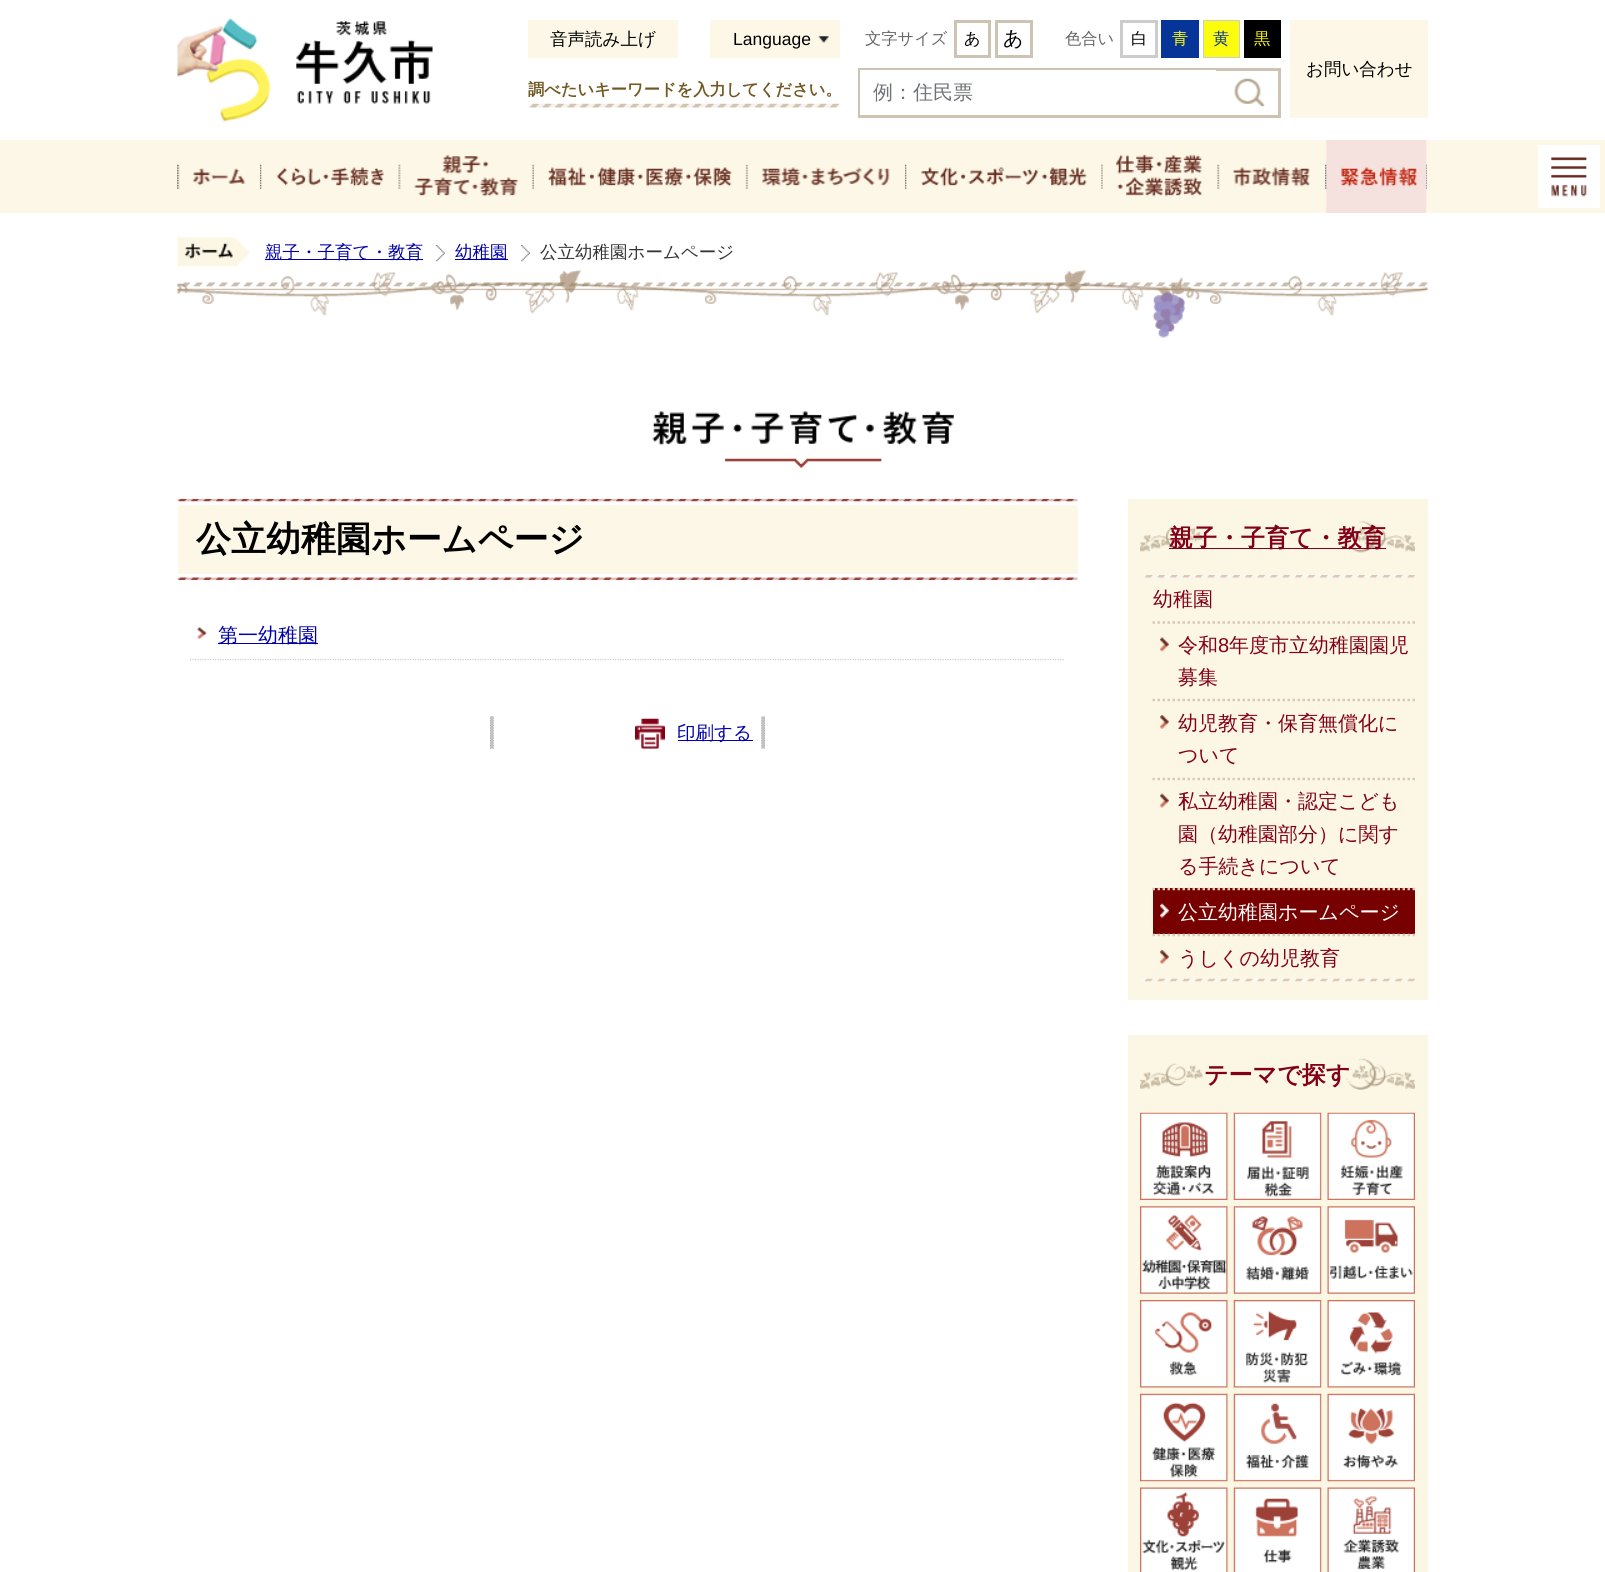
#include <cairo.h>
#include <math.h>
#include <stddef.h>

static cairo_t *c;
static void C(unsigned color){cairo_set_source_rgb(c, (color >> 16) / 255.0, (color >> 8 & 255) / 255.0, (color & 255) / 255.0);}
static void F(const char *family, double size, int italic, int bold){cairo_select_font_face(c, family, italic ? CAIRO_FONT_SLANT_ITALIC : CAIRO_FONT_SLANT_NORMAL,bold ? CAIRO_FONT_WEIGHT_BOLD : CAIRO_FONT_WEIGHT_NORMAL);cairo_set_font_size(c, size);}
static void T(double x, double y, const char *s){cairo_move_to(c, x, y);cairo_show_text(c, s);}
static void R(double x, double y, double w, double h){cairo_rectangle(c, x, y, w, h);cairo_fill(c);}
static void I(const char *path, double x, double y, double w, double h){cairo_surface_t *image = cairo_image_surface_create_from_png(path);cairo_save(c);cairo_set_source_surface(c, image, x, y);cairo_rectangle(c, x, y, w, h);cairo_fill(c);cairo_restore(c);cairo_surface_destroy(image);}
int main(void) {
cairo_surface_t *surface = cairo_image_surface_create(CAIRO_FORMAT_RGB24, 1605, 1572);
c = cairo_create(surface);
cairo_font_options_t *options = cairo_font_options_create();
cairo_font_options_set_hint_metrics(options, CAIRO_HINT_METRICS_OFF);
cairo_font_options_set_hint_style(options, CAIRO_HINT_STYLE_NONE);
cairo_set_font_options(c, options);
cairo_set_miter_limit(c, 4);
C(0xffffff);
cairo_paint(c);
I("1.png",177,18,256,104);
C(0xfcf7e6);
R(528,20,150,38);
F("WenQuanYi Zen Hei Medium",17.5,0,0);
C(0x000000);
T(550,45,"音声読み上げ");
C(0xfcf7e6);
R(710,20,130,38);
I("2.png",818,36,11,7);
F("Liberation Sans",17.5,0,0);
C(0x000000);
T(733,45,"Language");
F("WenQuanYi Zen Hei Medium",16.25,0,0);
C(0x666666);
T(865,44,"文字サイズ");
cairo_rectangle(c,955.5,21.5,34,35);
C(0xcdc3b3);
cairo_set_line_width(c,3);
cairo_stroke(c);
C(0x000000);
T(964,44,"あ");
cairo_rectangle(c,996.5,21.5,35,35);
C(0xcdc3b3);
cairo_stroke(c);
F("WenQuanYi Zen Hei Medium",20,0,0);
C(0x000000);
T(1003,45,"あ");
F("WenQuanYi Zen Hei Medium",16.25,0,0);
C(0x666666);
T(1065,44,"色合い");
cairo_rectangle(c,1121.5,21.5,35,35);
C(0xcccccc);
cairo_stroke(c);
C(0x000000);
T(1131,44,"白");
C(0x073498);
R(1161,20,38,38);
C(0xfcfc0e);
T(1172,44,"青");
cairo_rectangle(c,1203.5,20.5,36,37);
cairo_fill_preserve(c);
C(0xcccccc);
cairo_set_line_width(c,1);
cairo_stroke(c);
C(0x073498);
T(1213,44,"黄");
C(0x000000);
R(1244,20,37,38);
C(0xfcfc0e);
T(1254,44,"黒");
C(0xfcf7e6);
R(1290,20,138,98);
F("WenQuanYi Zen Hei Medium",17.5,0,0);
C(0x000000);
T(1306,75,"お問い合わせ");
I("3.png",528,103,313,5);
F("WenQuanYi Zen Hei",16.25,0,1);
C(0x715721);
T(528,95,"調べたいキーワードを入力してください。");
cairo_rectangle(c,859.5,69.5,420,47);
C(0xcdc3b3);
cairo_set_line_width(c,3);
cairo_stroke(c);
C(0xffffff);
R(860,70,356,45);
F("WenQuanYi Zen Hei Medium",20,0,0);
C(0x6f7277);
T(873,99,"例：住民票");
I("4.png",1234,78,31,29);
C(0xfcf7e6);
R(0,140,1605,73);
I("5.png",177,163,69,26);
I("6.png",260,163,124,26);
I("7.png",398,154,121,43);
I("8.png",532,164,200,25);
I("9.png",745,164,145,25);
I("10.png",905,163,182,26);
I("11.png",1101,154,101,43);
I("12.png",1217,164,93,25);
I("13.png",1325,140,102,73);
C(0xffffff);
R(1538,145,62,63);
I("14.png",1551,157,36,40);
I("15.png",177,270,1251,68);
I("16.png",177,237,73,30);
I("17.png",436,245,9,17);
C(0x0000aa);
R(265,259,158,1);
F("WenQuanYi Zen Hei Medium",17.5,0,0);
T(265,258,"親子・子育て・教育");
I("17.png",521,245,9,17);
R(455,259,53,1);
T(455,258,"幼稚園");
C(0x333333);
T(540,258,"公立幼稚園ホームページ");
I("18.png",652,411,302,57);
I("19.png",177,498,901,82);
C(0xfcf7e6);
R(178,505,900,69);
F("WenQuanYi Zen Hei",35,0,1);
C(0x000000);
T(196,551,"公立幼稚園ホームページ");
I("20.png",197,627,10,12);
cairo_new_path(c);
cairo_move_to(c,190,659.5);
cairo_line_to(c,1065,659.5);
C(0xcccccc);
cairo_set_line_width(c,1.2);
cairo_set_dash(c,(double[]){1.25,1.25},2,0);
cairo_stroke(c);
C(0x0000aa);
R(218,643,100,1);
F("WenQuanYi Zen Hei Medium",20,0,0);
T(218,642,"第一幼稚園");
I("21.png",490,716,4,33);
I("22.png",761,716,4,33);
I("23.png",635,718,30,31);
R(678,740,75,1);
F("WenQuanYi Zen Hei Medium",18.5,0,0);
T(677,739,"印刷する");
C(0xfcf7e4);
R(1128,499,300,501);
I("24.png",1140,521,275,32);
C(0x830019);
R(1169,548,217,1);
F("WenQuanYi Zen Hei",24,0,1);
T(1169,546,"親子・子育て・教育");
I("25.png",1140,575,275,3);
I("26.png",1140,978,275,4);
F("WenQuanYi Zen Hei Medium",20,0,0);
T(1153,606,"幼稚園");
I("27.png",1160,637,9,15);
cairo_new_path(c);
cairo_move_to(c,1152.5,622.5);
cairo_line_to(c,1415,622.5);
C(0xdbc8ba);
cairo_set_line_width(c,2.5);
cairo_set_dash(c,(double[]){2.5,2.5},2,0);
cairo_stroke(c);
C(0x830019);
T(1178,652,"令和");
F("Liberation Sans",20,0,0);
T(1218,652,"8");
F("WenQuanYi Zen Hei Medium",20,0,0);
T(1229,652,"年度市立幼稚園園児");
T(1178,684,"募集");
I("28.png",1160,715,9,14);
cairo_new_path(c);
cairo_move_to(c,1152.5,700);
cairo_line_to(c,1415,700);
C(0xdbc8ba);
cairo_stroke(c);
C(0x830019);
T(1178,730,"幼児教育・保育無償化に");
T(1178,762,"ついて");
I("29.png",1160,793,9,15);
cairo_new_path(c);
cairo_move_to(c,1152.5,779);
cairo_line_to(c,1415,779);
C(0xdbc8ba);
cairo_stroke(c);
C(0x830019);
T(1178,808,"私立幼稚園・認定こども");
T(1178,841,"園（幼稚園部分）に関す");
T(1178,873,"る手続きについて");
C(0x770000);
R(1153,888,262,46);
I("30.png",1160,903,9,15);
cairo_new_path(c);
cairo_move_to(c,1152.5,889);
cairo_line_to(c,1415,889);
C(0xdbc8ba);
cairo_stroke(c);
C(0xffffff);
T(1178,919,"公立幼稚園ホームページ");
I("28.png",1160,950,9,14);
cairo_new_path(c);
cairo_move_to(c,1152.5,935);
cairo_line_to(c,1415,935);
C(0xdbc8ba);
cairo_stroke(c);
C(0x830019);
T(1178,965,"うしくの幼児教育");
C(0xfcf7e4);
R(1128,1035,300,537);
I("31.png",1140,1058,275,32);
F("WenQuanYi Zen Hei",24,0,1);
C(0x830019);
T(1204,1083,"テーマで探す");
I("32.png",1140,1112,88,88);
I("33.png",1233,1112,89,88);
I("34.png",1327,1112,88,88);
I("35.png",1140,1206,88,88);
I("36.png",1233,1206,89,88);
I("37.png",1327,1206,88,88);
I("38.png",1140,1300,88,88);
I("39.png",1233,1300,89,88);
I("40.png",1327,1300,88,88);
I("41.png",1140,1393,88,89);
I("42.png",1233,1393,89,89);
I("43.png",1327,1393,88,89);
I("44.png",1140,1487,88,85);
I("45.png",1233,1487,89,85);
I("46.png",1327,1487,88,85);
cairo_surface_write_to_png(surface, "o.png");
cairo_font_options_destroy(options);
cairo_destroy(c);
cairo_surface_destroy(surface);
return 0;
}
